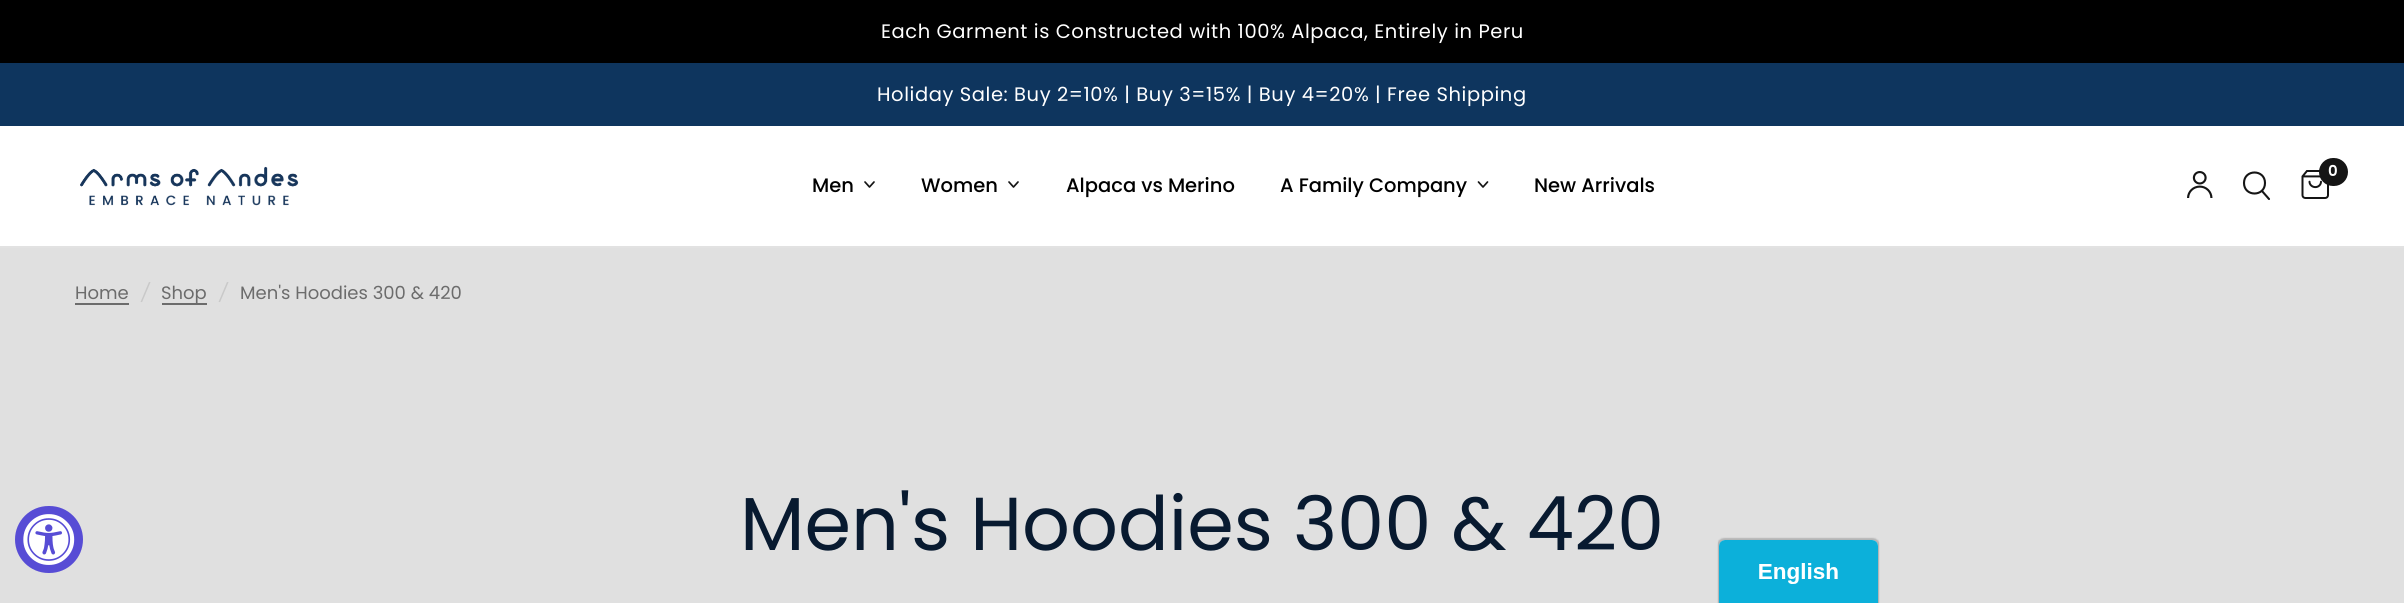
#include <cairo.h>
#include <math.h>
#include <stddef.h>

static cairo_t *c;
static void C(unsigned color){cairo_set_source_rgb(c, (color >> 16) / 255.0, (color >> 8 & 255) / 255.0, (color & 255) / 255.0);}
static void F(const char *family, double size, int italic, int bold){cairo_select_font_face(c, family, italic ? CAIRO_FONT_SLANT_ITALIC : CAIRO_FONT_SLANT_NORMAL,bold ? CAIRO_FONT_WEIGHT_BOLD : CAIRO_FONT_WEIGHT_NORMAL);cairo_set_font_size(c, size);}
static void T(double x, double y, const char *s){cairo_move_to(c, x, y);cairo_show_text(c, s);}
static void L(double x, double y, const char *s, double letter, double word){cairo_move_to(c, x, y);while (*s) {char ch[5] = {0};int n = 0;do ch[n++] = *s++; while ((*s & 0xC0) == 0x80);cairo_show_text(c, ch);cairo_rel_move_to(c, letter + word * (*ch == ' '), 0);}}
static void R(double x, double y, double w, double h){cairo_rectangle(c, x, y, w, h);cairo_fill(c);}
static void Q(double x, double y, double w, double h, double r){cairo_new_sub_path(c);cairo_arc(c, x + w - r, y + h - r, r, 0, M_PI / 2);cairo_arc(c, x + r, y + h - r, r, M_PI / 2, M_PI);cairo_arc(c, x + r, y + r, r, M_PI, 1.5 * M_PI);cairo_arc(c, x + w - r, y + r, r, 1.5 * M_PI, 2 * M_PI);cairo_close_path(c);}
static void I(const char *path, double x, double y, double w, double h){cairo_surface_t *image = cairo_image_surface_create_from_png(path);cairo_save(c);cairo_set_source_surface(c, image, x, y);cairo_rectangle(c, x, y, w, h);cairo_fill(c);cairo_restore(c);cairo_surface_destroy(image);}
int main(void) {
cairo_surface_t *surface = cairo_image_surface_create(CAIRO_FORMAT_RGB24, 2404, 603);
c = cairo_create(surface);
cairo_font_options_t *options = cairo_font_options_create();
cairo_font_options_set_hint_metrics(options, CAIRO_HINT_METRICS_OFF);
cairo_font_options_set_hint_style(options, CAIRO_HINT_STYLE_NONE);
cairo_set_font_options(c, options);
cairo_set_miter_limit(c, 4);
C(0xffffff);
cairo_paint(c);
C(0xe0e0e0);
R(0,248,2404,355);
C(0x574cd5);
Q(15,506,68,67,33.5);
cairo_fill(c);
I("1.png",23,514,52,51);
C(0x000000);
R(0,0,2404,63);
F("Poppins",19.5,0,0);
C(0xffffff);
L(881,38,"Each Garment is Constructed with 100% Alpaca, Entirely in Peru",.58,0);
C(0x0e355e);
R(0,63,2404,63);
C(0xffffff);
L(877,101,"Holiday Sale: Buy 2=10% | Buy 3=15% | Buy 4=20% | Free Shipping",.58,0);
C(0xe2e2e2);
R(0,246,2404,2);
I("2.png",2187,171,26,27);
cairo_new_path(c);
cairo_move_to(c,2262,191);
cairo_line_to(c,2269,199);
cairo_move_to(c,2265,183);
cairo_curve_to(c,2265,197,2244,197,2244,183);
cairo_curve_to(c,2244,169,2265,169,2265,183);
cairo_close_path(c);
C(0x151515);
cairo_set_line_width(c,2.1);
cairo_set_line_cap(c,CAIRO_LINE_CAP_ROUND);
cairo_set_line_join(c,CAIRO_LINE_JOIN_ROUND);
cairo_stroke(c);
I("3.png",2301,170,28,29);
Q(2319,158,29,28,14);
cairo_fill(c);
F("Poppins SemiBold",15,0,0);
C(0xffffff);
T(2328,176,"0");
I("4.png",80,166,219,40);
F("Poppins Medium",19.5,0,0);
C(0x000000);
T(812,192,"Men");
cairo_new_path(c);
cairo_move_to(c,874,182);
cairo_line_to(c,869.5,187);
cairo_line_to(c,865,182);
C(0x151515);
cairo_set_line_width(c,1.7);
cairo_stroke(c);
C(0x000000);
T(921,192,"Women");
cairo_new_path(c);
cairo_move_to(c,1018,182);
cairo_line_to(c,1013.5,187);
cairo_line_to(c,1009,182);
C(0x151515);
cairo_stroke(c);
C(0x000000);
T(1066,192,"Alpaca vs Merino");
T(1280,192,"A Family Company");
cairo_new_path(c);
cairo_move_to(c,1487.5,182);
cairo_line_to(c,1483,187);
cairo_line_to(c,1478.5,182);
C(0x151515);
cairo_stroke(c);
C(0x000000);
T(1534,192,"New Arrivals");
F("Poppins",18,0,0);
C(0x6c6c6c);
T(75,299,"Home");
R(75,303,54,2);
F("Poppins",18,1,0);
C(0xc9c9c9);
T(141,299,"/");
C(0x6c6c6c);
R(162,303,45,2);
F("Poppins",18,0,0);
T(161,299,"Shop");
F("Poppins",18,1,0);
C(0xc9c9c9);
T(219,299,"/");
F("Poppins",18,0,0);
C(0x6c6c6c);
T(240,299,"Men's Hoodies 300 & 420");
F("Poppins",75,0,0);
C(0x081a30);
T(740,550,"Men's Hoodies 300 & 420");
I("5.png",1717,537,163,66);
cairo_surface_write_to_png(surface, "o.png");
cairo_font_options_destroy(options);
cairo_destroy(c);
cairo_surface_destroy(surface);
return 0;
}
